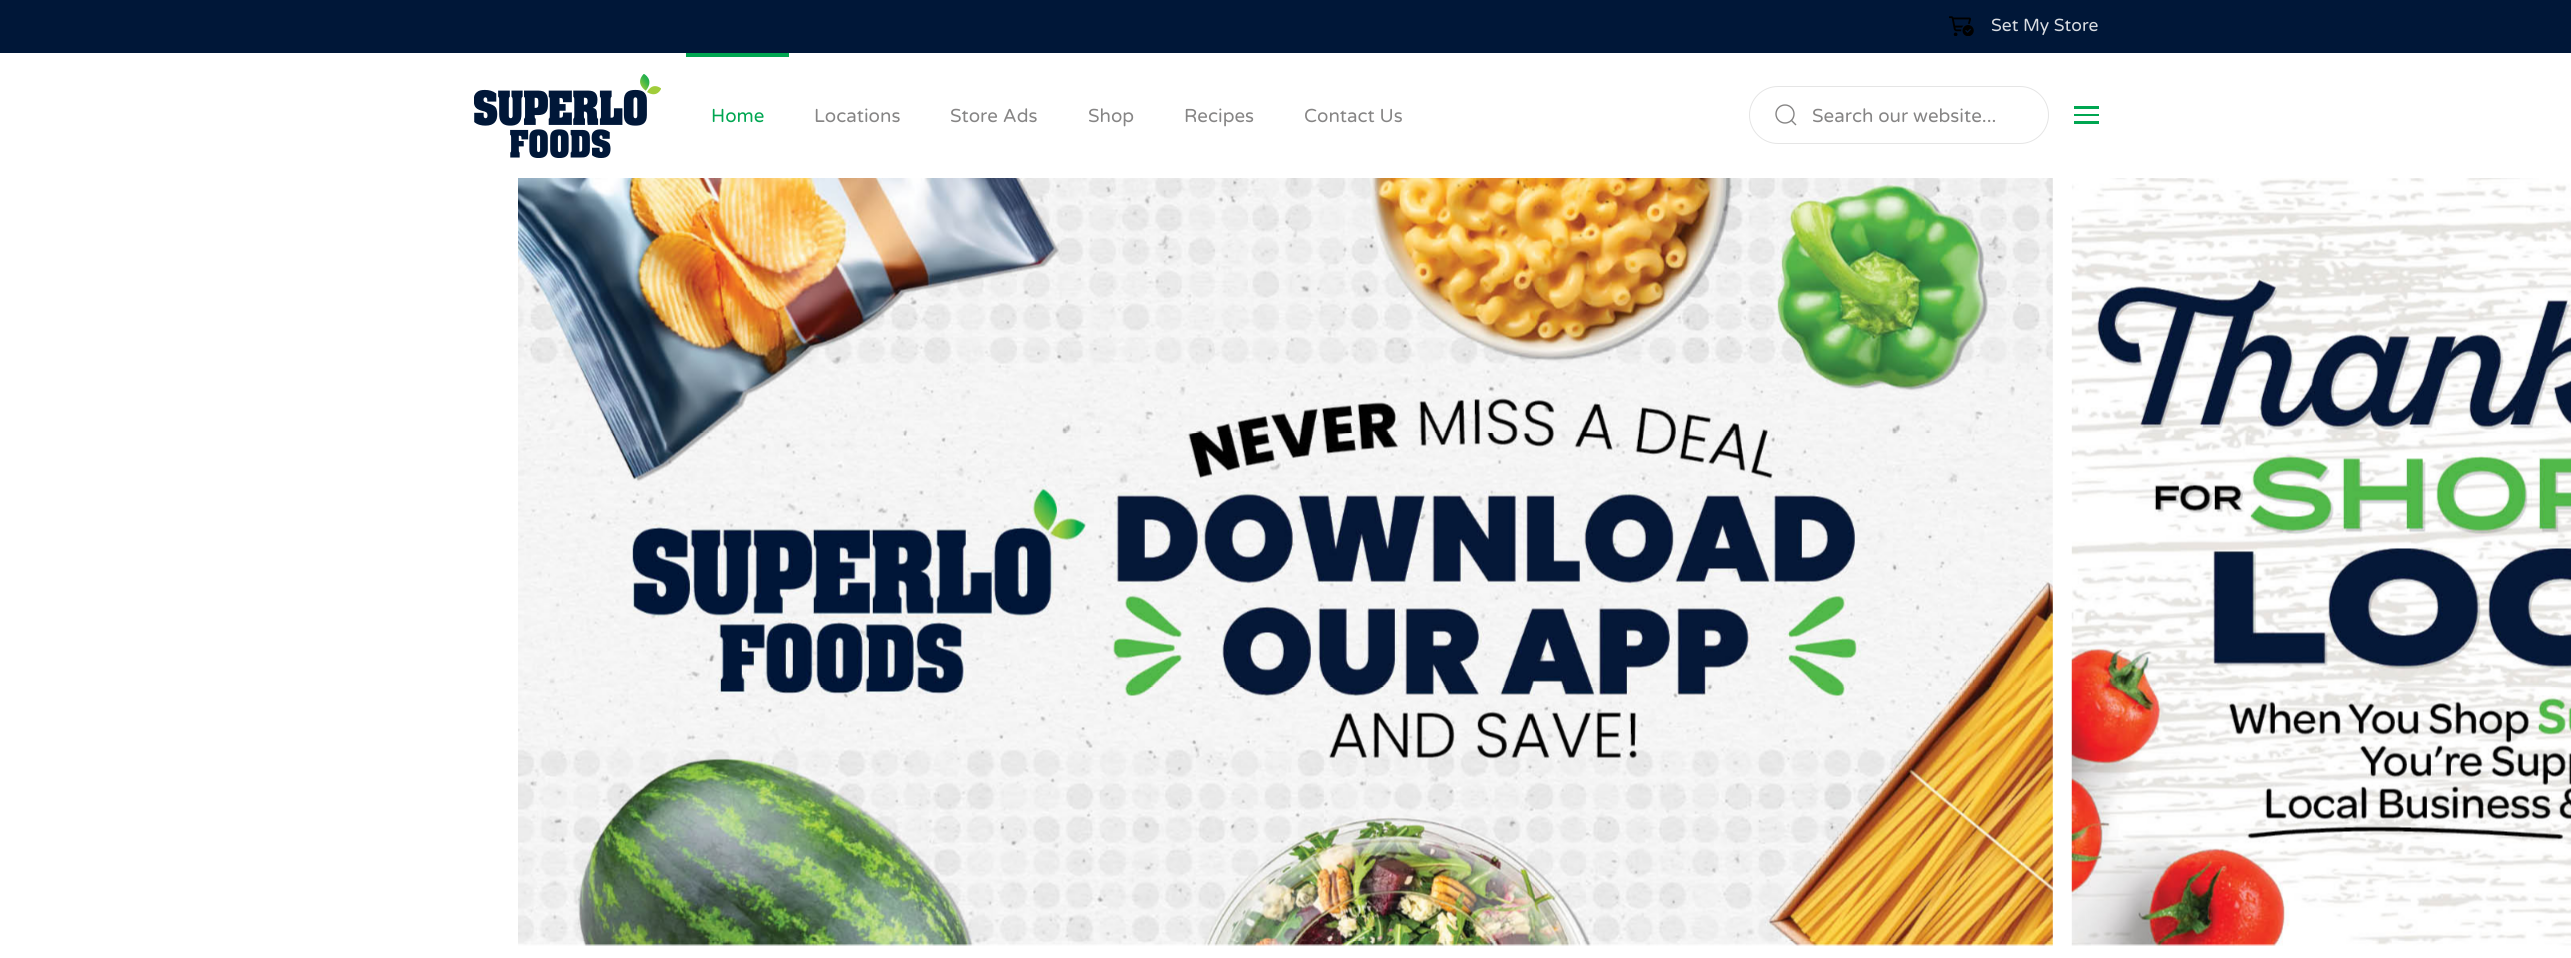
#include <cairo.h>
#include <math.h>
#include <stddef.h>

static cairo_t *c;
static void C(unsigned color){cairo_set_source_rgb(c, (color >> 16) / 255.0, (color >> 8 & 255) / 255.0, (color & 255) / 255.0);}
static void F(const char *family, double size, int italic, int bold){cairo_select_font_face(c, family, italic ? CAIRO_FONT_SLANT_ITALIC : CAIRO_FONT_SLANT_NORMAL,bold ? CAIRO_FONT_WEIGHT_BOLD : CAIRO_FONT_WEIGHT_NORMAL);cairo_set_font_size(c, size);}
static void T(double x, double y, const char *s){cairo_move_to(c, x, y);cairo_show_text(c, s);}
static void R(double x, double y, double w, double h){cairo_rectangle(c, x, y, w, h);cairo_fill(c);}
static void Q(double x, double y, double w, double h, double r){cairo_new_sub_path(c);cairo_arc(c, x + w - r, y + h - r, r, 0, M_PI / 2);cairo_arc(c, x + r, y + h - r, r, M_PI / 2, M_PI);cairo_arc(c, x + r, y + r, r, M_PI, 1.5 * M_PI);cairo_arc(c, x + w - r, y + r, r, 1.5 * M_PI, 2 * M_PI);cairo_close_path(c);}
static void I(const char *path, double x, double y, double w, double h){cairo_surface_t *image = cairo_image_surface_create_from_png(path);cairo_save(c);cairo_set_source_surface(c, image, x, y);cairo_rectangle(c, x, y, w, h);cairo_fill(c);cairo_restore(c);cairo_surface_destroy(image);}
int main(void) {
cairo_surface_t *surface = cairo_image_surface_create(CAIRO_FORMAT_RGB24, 2571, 958);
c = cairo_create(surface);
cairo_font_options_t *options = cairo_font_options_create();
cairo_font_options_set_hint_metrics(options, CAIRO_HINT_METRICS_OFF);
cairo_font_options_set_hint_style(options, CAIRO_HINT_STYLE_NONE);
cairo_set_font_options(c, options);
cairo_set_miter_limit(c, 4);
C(0xffffff);
cairo_paint(c);
C(0x001738);
R(0,0,2571,53);
I("1.png",1949,16,25,20);
F("Varela Round",17.5,0,0);
C(0xd9dce1);
T(1991,31,"Set My Store");
I("2.png",474,74,187,84);
C(0x00a651);
R(686,53,103,4);
F("Varela Round",18.75,0,0);
T(711,122,"Home");
C(0x868585);
T(814,122,"Locations");
T(950,122,"Store Ads");
T(1088,122,"Shop");
T(1184,122,"Recipes");
T(1304,122,"Contact Us");
Q(1749.5,86.5,299,57,28.5);
C(0xe5e5e5);
cairo_set_line_width(c,1);
cairo_stroke(c);
cairo_arc(c,1785,114,9,0,2 * M_PI);
C(0x868585);
cairo_set_line_width(c,1.4);
cairo_stroke(c);
cairo_new_path(c);
cairo_move_to(c,1791,120);
cairo_line_to(c,1796,125);
cairo_close_path(c);
cairo_stroke(c);
T(1812,122,"Search our website...");
C(0x00a651);
R(2074,106,25,3);
R(2074,114,25,2);
R(2074,121,25,3);
I("3.png",518,178,1535,768);
I("4.png",2071,178,500,768);
cairo_surface_write_to_png(surface, "o.png");
cairo_font_options_destroy(options);
cairo_destroy(c);
cairo_surface_destroy(surface);
return 0;
}
